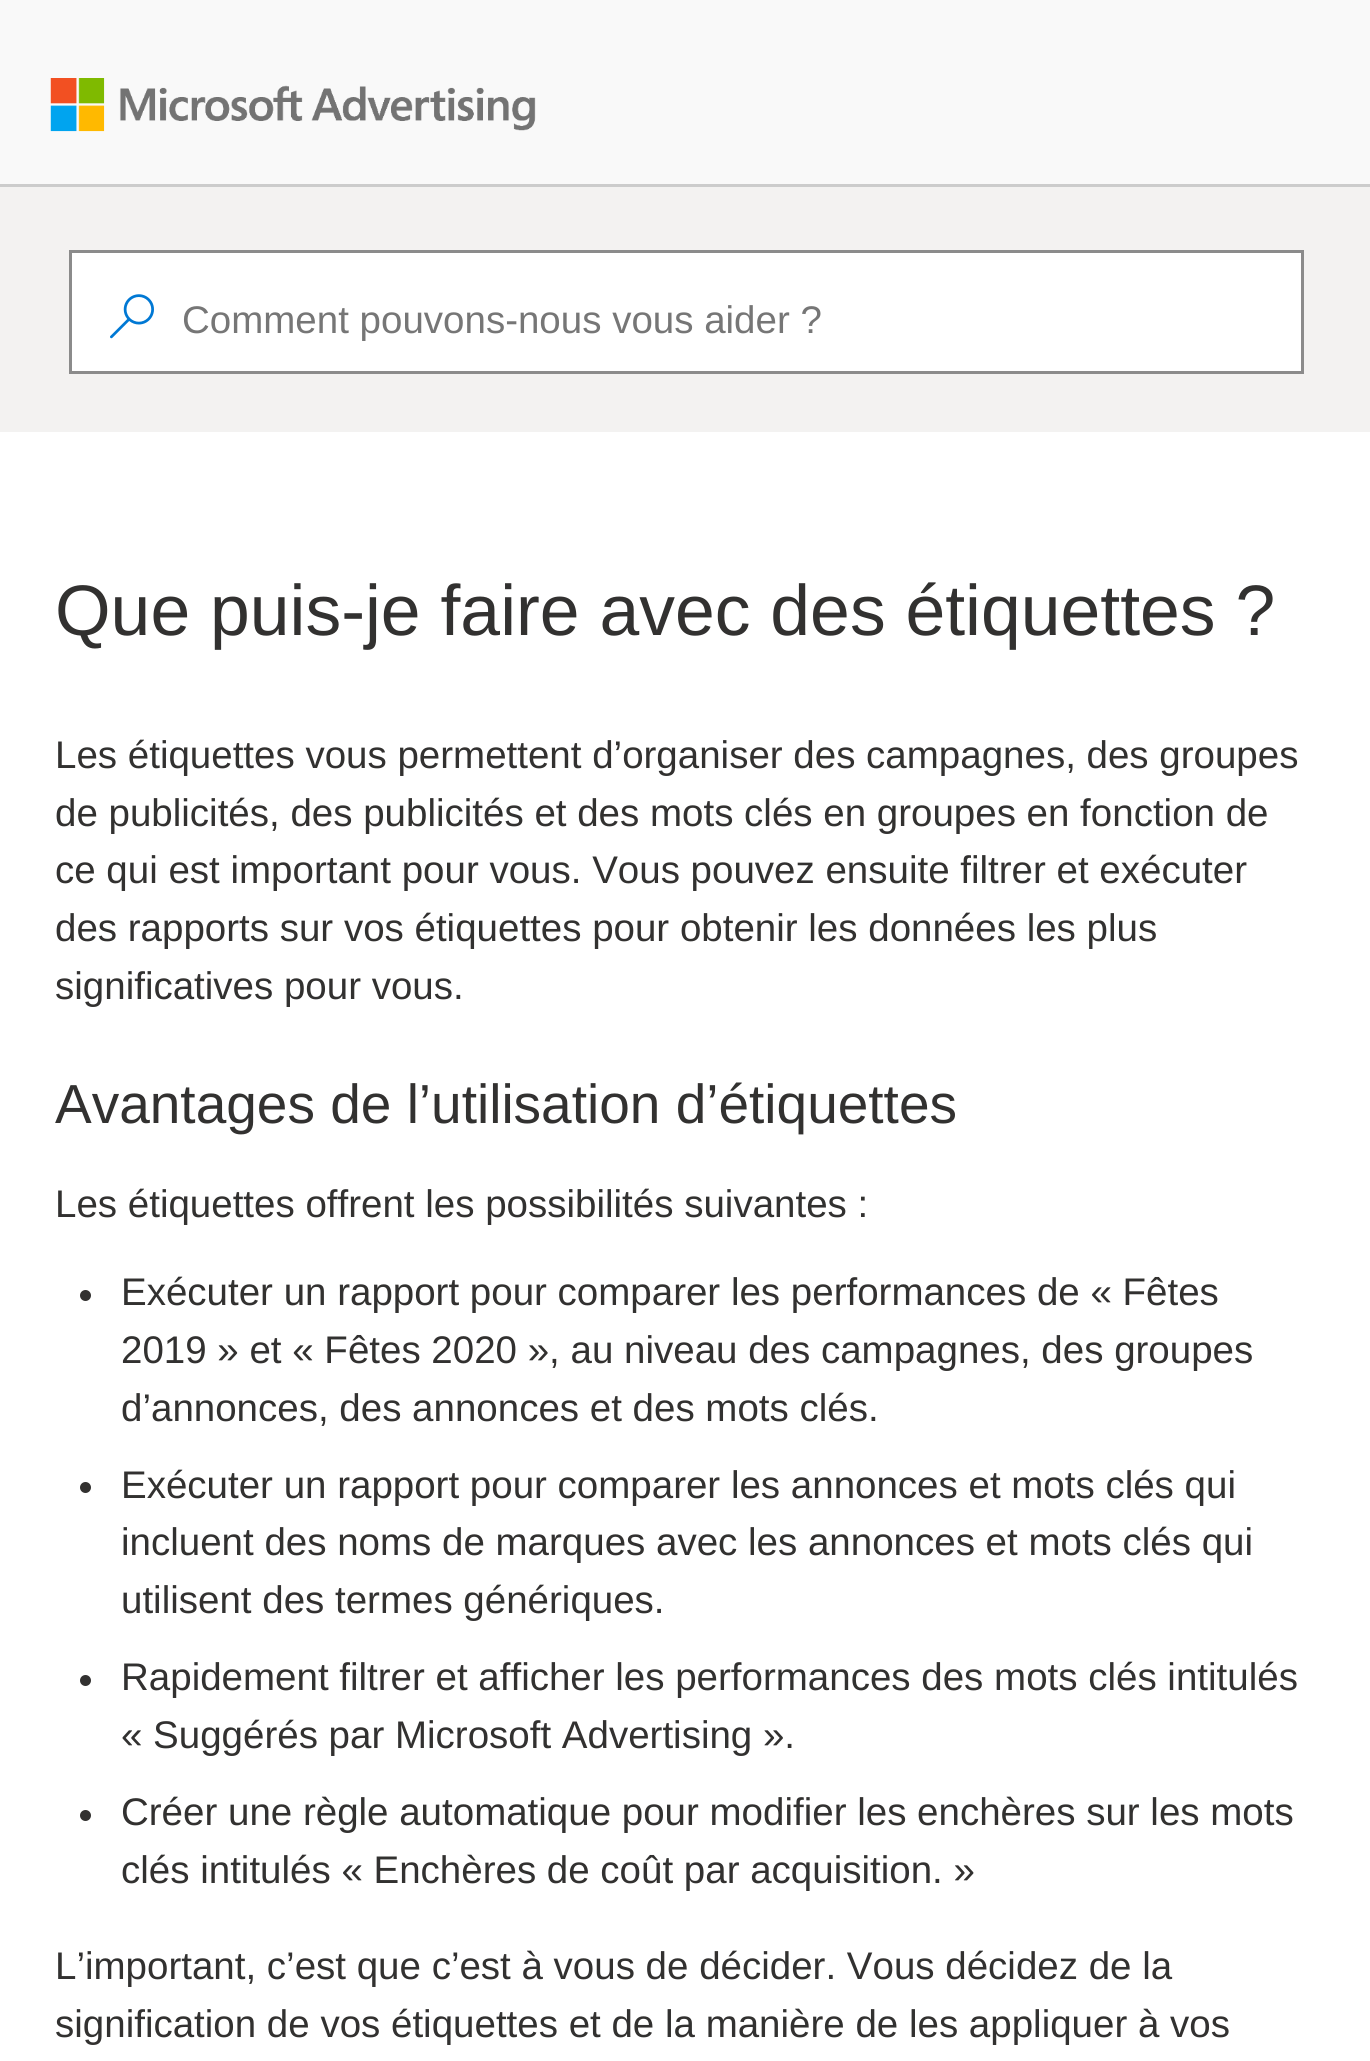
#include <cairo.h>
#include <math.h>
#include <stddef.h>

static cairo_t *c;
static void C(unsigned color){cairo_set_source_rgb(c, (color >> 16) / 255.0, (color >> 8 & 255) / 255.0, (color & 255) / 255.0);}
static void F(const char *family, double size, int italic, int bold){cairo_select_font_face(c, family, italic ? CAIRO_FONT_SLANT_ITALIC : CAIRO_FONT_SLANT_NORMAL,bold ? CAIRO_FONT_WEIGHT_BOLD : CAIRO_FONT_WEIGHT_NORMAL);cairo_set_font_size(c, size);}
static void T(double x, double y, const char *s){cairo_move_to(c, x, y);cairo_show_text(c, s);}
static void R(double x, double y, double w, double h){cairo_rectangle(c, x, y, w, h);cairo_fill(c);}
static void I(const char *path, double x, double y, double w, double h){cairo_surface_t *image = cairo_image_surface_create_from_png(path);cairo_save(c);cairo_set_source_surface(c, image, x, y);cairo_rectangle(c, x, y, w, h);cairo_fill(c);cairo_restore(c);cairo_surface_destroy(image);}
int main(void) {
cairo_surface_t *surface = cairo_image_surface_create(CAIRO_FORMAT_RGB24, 1370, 2061);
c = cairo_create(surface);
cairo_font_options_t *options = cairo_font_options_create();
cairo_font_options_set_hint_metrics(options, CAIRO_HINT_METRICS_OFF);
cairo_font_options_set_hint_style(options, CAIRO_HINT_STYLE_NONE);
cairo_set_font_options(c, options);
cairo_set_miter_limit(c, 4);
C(0xffffff);
cairo_paint(c);
C(0xf9f9f9);
R(0,0,1370,184);
C(0xcccccc);
R(0,184,1370,3);
I("1.png",50,78,486,54);
C(0xf3f2f1);
R(0,187,1370,245);
C(0xffffff);
cairo_rectangle(c,70.5,251.5,1232,121);
cairo_fill_preserve(c);
C(0x8b8b8b);
cairo_set_line_width(c,3);
cairo_stroke(c);
I("2.png",110,294,44,45);
F("Liberation Sans",38.5,0,0);
C(0x767676);
T(182,333,"Comment pouvons-nous vous aider ?");
F("Liberation Sans",71.5,0,0);
C(0x323130);
T(55,635,"Que puis-je faire avec des étiquettes ?");
F("Liberation Sans",38.5,0,0);
T(55,768,"Les étiquettes vous permettent d’organiser des campagnes, des groupes");
T(55,826,"de publicités, des publicités et des mots clés en groupes en fonction de");
T(55,883,"ce qui est important pour vous. Vous pouvez ensuite filtrer et exécuter");
T(55,941,"des rapports sur vos étiquettes pour obtenir les données les plus");
T(55,999,"significatives pour vous.");
F("Liberation Sans",55,0,0);
T(55,1123,"Avantages de l’utilisation d’étiquettes");
F("Liberation Sans",38.5,0,0);
T(55,1217,"Les étiquettes offrent les possibilités suivantes :");
cairo_new_path(c);
cairo_arc(c,85.5,1295.5,5.5,0,2 * M_PI);
cairo_fill(c);
T(121,1305,"Exécuter un rapport pour comparer les performances de « Fêtes");
T(121,1363,"2019 » et « Fêtes 2020 », au niveau des campagnes, des groupes");
T(121,1421,"d’annonces, des annonces et des mots clés.");
cairo_new_path(c);
cairo_arc(c,85.5,1487.5,5.5,0,2 * M_PI);
cairo_fill(c);
T(121,1498,"Exécuter un rapport pour comparer les annonces et mots clés qui");
T(121,1555,"incluent des noms de marques avec les annonces et mots clés qui");
T(121,1613,"utilisent des termes génériques.");
cairo_new_path(c);
cairo_arc(c,85.5,1680.5,5.5,0,2 * M_PI);
cairo_fill(c);
T(121,1690,"Rapidement filtrer et afficher les performances des mots clés intitulés");
T(121,1748,"« Suggérés par Microsoft Advertising ».");
cairo_new_path(c);
cairo_arc(c,85.5,1815.5,5.5,0,2 * M_PI);
cairo_fill(c);
T(121,1825,"Créer une règle automatique pour modifier les enchères sur les mots");
T(121,1883,"clés intitulés « Enchères de coût par acquisition. »");
T(55,1979,"L’important, c’est que c’est à vous de décider. Vous décidez de la");
T(55,2037,"signification de vos étiquettes et de la manière de les appliquer à vos");
cairo_surface_write_to_png(surface, "o.png");
cairo_font_options_destroy(options);
cairo_destroy(c);
cairo_surface_destroy(surface);
return 0;
}
